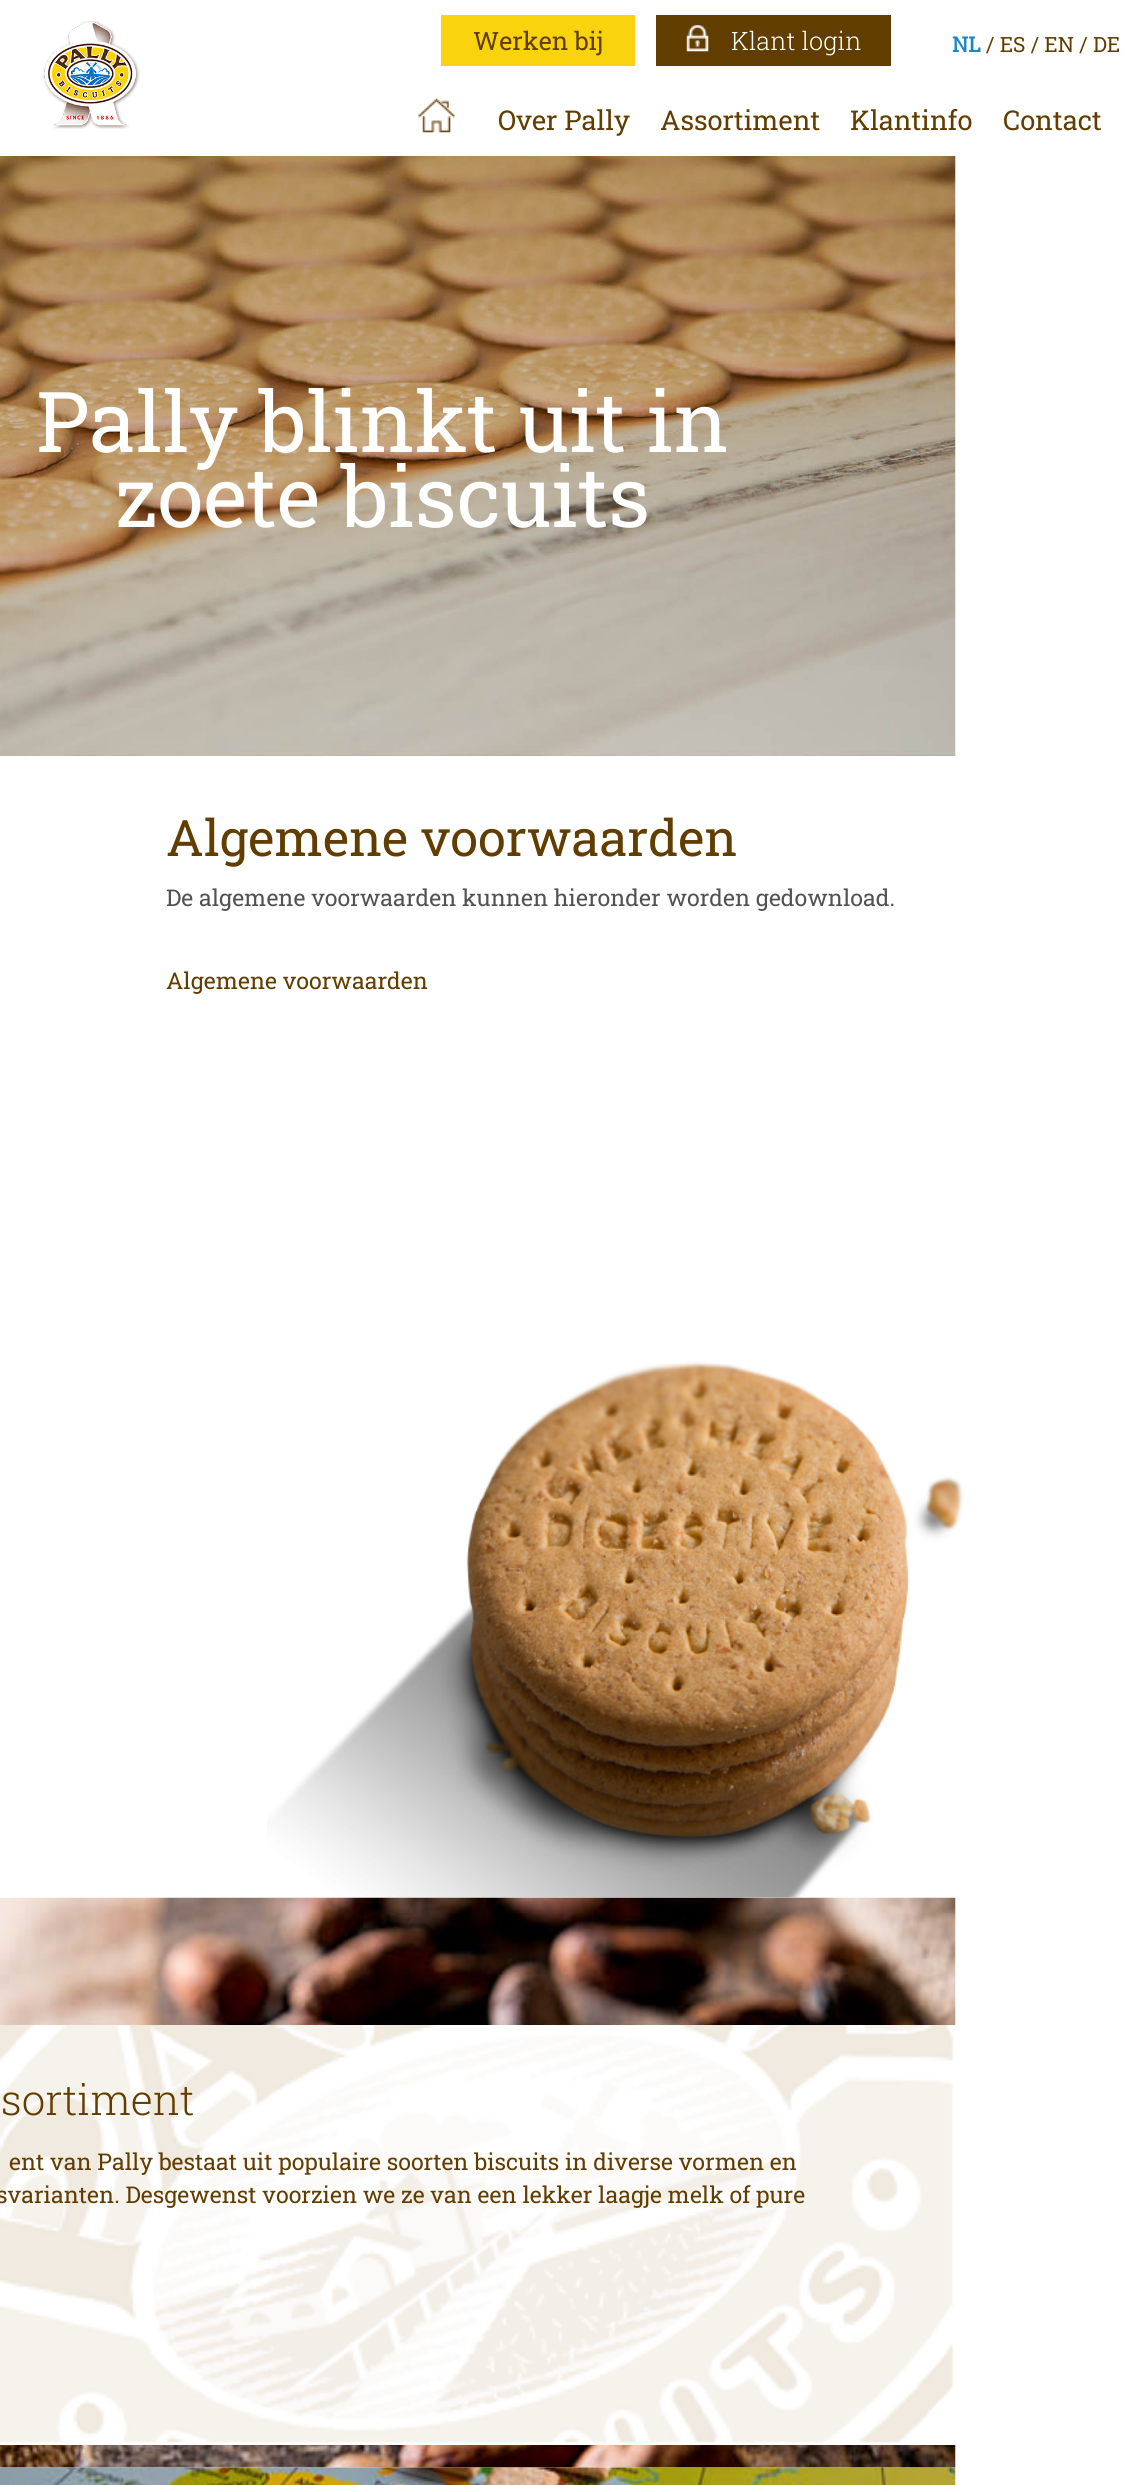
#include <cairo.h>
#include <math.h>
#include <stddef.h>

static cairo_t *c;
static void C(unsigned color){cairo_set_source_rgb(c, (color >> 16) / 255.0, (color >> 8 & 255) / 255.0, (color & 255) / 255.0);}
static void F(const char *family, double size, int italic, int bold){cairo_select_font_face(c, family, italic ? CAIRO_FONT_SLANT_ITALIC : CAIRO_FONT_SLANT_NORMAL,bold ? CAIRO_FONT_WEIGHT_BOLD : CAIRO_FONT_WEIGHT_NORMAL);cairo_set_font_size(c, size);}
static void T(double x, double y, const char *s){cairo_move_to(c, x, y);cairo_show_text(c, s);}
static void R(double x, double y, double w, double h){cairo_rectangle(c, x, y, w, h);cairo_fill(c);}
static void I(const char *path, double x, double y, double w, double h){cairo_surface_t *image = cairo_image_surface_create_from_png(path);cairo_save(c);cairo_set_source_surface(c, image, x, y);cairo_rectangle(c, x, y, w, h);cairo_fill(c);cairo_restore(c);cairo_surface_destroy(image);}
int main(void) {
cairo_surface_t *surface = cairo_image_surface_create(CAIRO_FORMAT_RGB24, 1145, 2485);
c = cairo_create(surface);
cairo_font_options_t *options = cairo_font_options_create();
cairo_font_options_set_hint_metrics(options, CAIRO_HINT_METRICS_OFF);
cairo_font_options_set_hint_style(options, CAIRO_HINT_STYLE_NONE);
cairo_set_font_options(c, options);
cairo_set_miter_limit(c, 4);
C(0xffffff);
cairo_paint(c);
I("1.png",42,21,98,108);
C(0xf9d30d);
R(441,15,194,51);
F("Roboto Slab",25.25,0,0);
C(0x623d00);
T(473,50,"Werken bij");
R(656,15,235,51);
I("2.png",686,25,23,27);
F("Roboto Slab Light",25.25,0,0);
C(0xffffff);
T(731,50,"Klant login");
F("Roboto Slab",21,0,1);
C(0x1b85c7);
T(952,52,"NL");
F("Roboto Slab",21,0,0);
C(0x623d00);
T(986,52,"/ ES / EN / DE");
I("3.png",418,98,37,35);
F("Roboto Slab",27.25,0,0);
T(498,130,"Over Pally");
T(660,130,"Assortiment");
T(850,130,"Klantinfo");
T(1003,130,"Contact");
I("4.png",0,156,956,600);
F("Roboto Slab",84,0,0);
C(0xffffff);
T(36,452,"Pally blinkt uit in");
T(115,527,"zoete biscuits");
F("Roboto Slab",50.4,0,0);
C(0x623d00);
T(166,856,"Algemene voorwaarden");
F("Roboto Slab",23.1,0,0);
C(0x535252);
T(166,906,"De algemene voorwaarden kunnen hieronder worden gedownload.");
C(0x623d00);
T(166,989,"Algemene voorwaarden");
I("5.png",267,1361,697,537);
I("6.png",0,1897,956,571);
C(0xffffff);
R(0,2025,956,420);
I("7.png",0,2025,954,418);
F("Roboto Slab Light",42,0,0);
C(0x623d00);
T(1,2115,"sortiment");
F("Roboto Slab",23.1,0,0);
T(9,2170,"ent van Pally bestaat uit populaire soorten biscuits in diverse vormen en");
T(-4,2203,"svarianten. Desgewenst voorzien we ze van een lekker laagje melk of pure");
I("8.png",0,2467,956,18);
cairo_surface_write_to_png(surface, "o.png");
cairo_font_options_destroy(options);
cairo_destroy(c);
cairo_surface_destroy(surface);
return 0;
}
